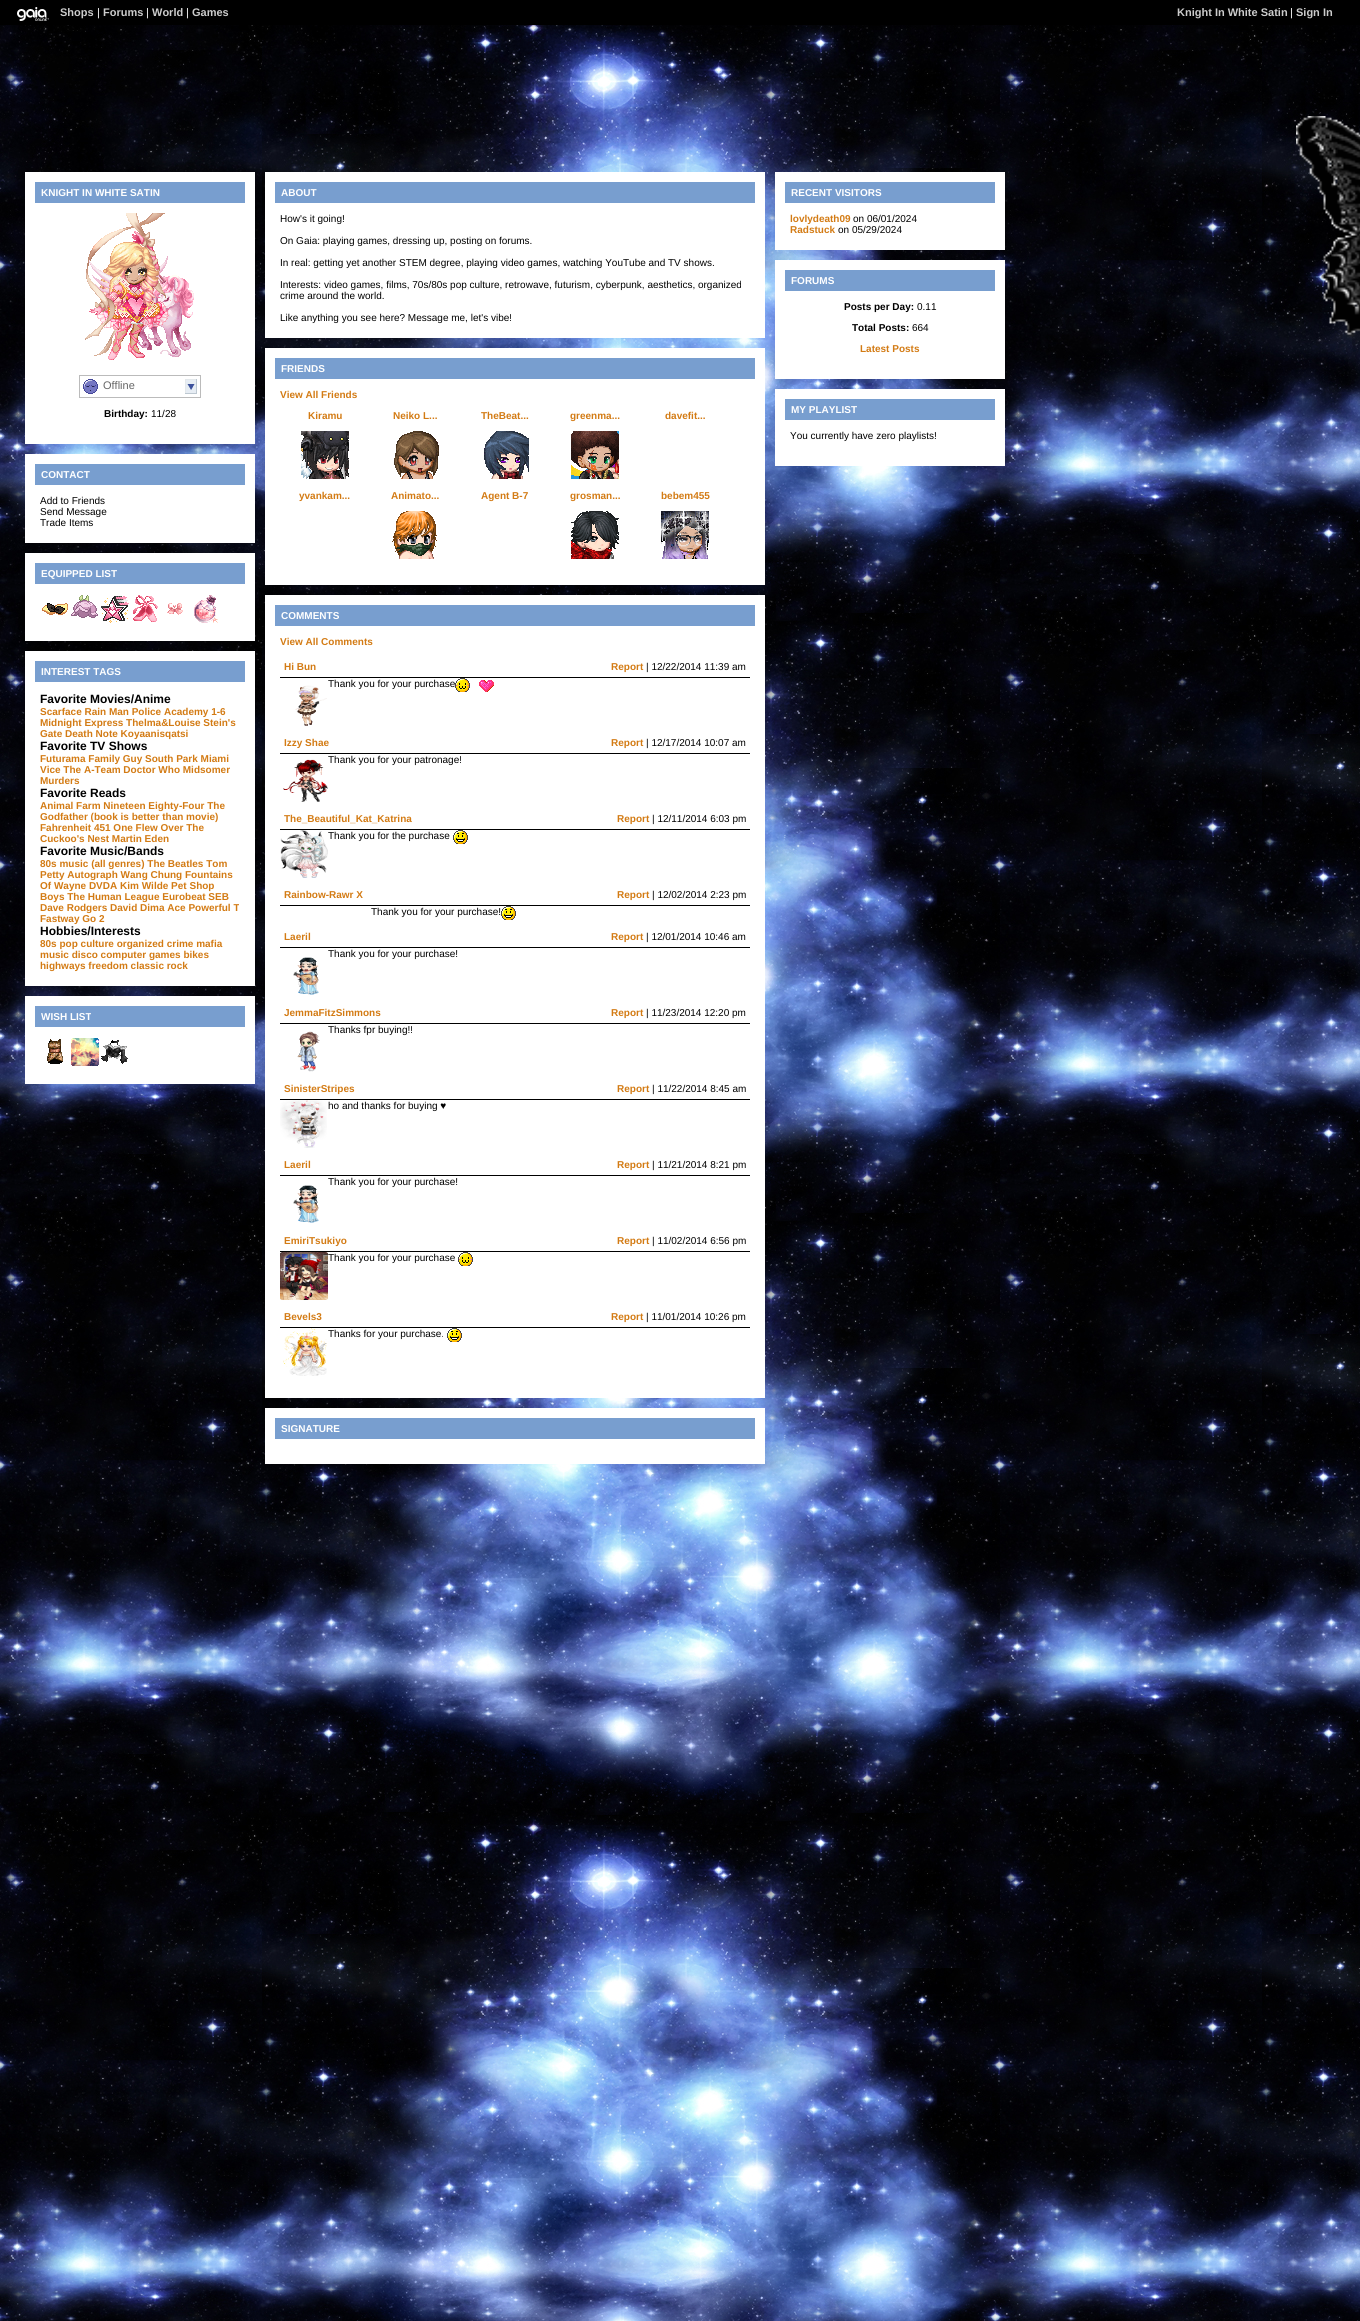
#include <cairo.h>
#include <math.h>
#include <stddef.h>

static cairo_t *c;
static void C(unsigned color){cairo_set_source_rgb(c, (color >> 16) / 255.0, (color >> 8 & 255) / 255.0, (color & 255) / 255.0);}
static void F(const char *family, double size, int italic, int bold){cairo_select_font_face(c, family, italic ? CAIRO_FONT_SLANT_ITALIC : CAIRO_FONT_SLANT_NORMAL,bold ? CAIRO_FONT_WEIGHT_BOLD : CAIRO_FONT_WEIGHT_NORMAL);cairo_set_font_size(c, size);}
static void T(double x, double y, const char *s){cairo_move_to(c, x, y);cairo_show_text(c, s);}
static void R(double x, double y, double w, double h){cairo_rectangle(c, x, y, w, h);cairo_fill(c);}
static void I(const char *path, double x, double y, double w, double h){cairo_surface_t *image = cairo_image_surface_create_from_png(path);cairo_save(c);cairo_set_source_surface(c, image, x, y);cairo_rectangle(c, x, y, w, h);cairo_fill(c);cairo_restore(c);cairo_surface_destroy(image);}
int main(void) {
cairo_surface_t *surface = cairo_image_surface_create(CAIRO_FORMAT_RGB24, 1360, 2321);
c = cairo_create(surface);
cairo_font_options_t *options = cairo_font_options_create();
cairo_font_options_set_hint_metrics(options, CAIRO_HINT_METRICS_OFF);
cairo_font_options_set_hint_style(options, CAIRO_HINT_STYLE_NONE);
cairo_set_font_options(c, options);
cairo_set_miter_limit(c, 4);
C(0xffffff);
cairo_paint(c);
I("1.png",0,25,1360,2296);
C(0x000000);
R(0,0,1360,25);
I("2.png",17,7,32,14);
F("Liberation Sans",11,0,1);
C(0xcccccc);
T(60,16,"Shops");
F("Liberation Sans",11,0,0);
C(0xffffff);
T(97,16,"|");
F("Liberation Sans",11,0,1);
C(0xcccccc);
T(103,16,"Forums");
F("Liberation Sans",11,0,0);
C(0xffffff);
T(146,16,"|");
F("Liberation Sans",11,0,1);
C(0xcccccc);
T(152,16,"World");
F("Liberation Sans",11,0,0);
C(0xffffff);
T(186,16,"|");
F("Liberation Sans",11,0,1);
C(0xcccccc);
T(192,16,"Games");
T(1177,16,"Knight In White Satin");
F("Liberation Sans",11,0,0);
C(0xffffff);
T(1290,16,"|");
F("Liberation Sans",11,0,1);
C(0xcccccc);
T(1296,16,"Sign In");
C(0xffffff);
R(25,172,230,272);
C(0x789ecf);
R(35,182,210,21);
F("Liberation Sans",10,0,1);
C(0xffffff);
T(41,196,"KNIGHT IN WHITE SATIN");
I("3.png",85,213,109,147);
cairo_rectangle(c,79.5,375.5,121,22);
C(0xbbbbbb);
cairo_set_line_width(c,1);
cairo_stroke(c);
I("4.png",185,379,12,15);
I("5.png",83,379,15,15);
F("Liberation Sans",11,0,0);
C(0x666666);
T(103,389,"Offline");
F("Liberation Sans",10,0,1);
C(0x000000);
T(104,417,"Birthday:");
F("Liberation Sans",10,0,0);
T(151,417,"11/28");
C(0xffffff);
R(25,454,230,89);
C(0x789ecf);
R(35,464,210,21);
F("Liberation Sans",10,0,1);
C(0xffffff);
T(41,478,"CONTACT");
F("Liberation Sans",10,0,0);
C(0x000000);
T(40,504,"Add to Friends");
T(40,515,"Send Message");
T(40,526,"Trade Items");
C(0xffffff);
R(25,553,230,88);
C(0x789ecf);
R(35,563,210,21);
F("Liberation Sans",10,0,1);
C(0xffffff);
T(41,577,"EQUIPPED LIST");
I("6.png",42,603,26,12);
I("7.png",71,595,27,23);
I("8.png",101,596,28,27);
R(110,604,3,3);
I("9.png",133,595,25,27);
I("10.png",167,603,16,12);
R(170,604,3,3);
I("11.png",194,595,24,28);
R(25,651,230,335);
C(0x789ecf);
R(35,661,210,21);
C(0xffffff);
T(41,675,"INTEREST TAGS");
F("Liberation Sans",12,0,1);
C(0x000000);
T(40,703,"Favorite Movies/Anime");
F("Liberation Sans",10,0,1);
C(0xd37b14);
T(40,715,"Scarface Rain Man Police Academy 1-6");
T(40,726,"Midnight Express Thelma&Louise Stein's");
T(40,737,"Gate Death Note Koyaanisqatsi");
F("Liberation Sans",12,0,1);
C(0x000000);
T(40,750,"Favorite TV Shows");
F("Liberation Sans",10,0,1);
C(0xd37b14);
T(40,762,"Futurama Family Guy South Park Miami");
T(40,773,"Vice The A-Team Doctor Who Midsomer");
T(40,784,"Murders");
F("Liberation Sans",12,0,1);
C(0x000000);
T(40,797,"Favorite Reads");
F("Liberation Sans",10,0,1);
C(0xd37b14);
T(40,809,"Animal Farm Nineteen Eighty-Four The");
T(40,820,"Godfather (book is better than movie)");
T(40,831,"Fahrenheit 451 One Flew Over The");
T(40,842,"Cuckoo's Nest Martin Eden");
F("Liberation Sans",12,0,1);
C(0x000000);
T(40,855,"Favorite Music/Bands");
F("Liberation Sans",10,0,1);
C(0xd37b14);
T(40,867,"80s music (all genres) The Beatles Tom");
T(40,878,"Petty Autograph Wang Chung Fountains");
T(40,889,"Of Wayne DVDA Kim Wilde Pet Shop");
T(40,900,"Boys The Human League Eurobeat SEB");
T(40,911,"Dave Rodgers David Dima Ace Powerful T");
T(40,922,"Fastway Go 2");
F("Liberation Sans",12,0,1);
C(0x000000);
T(40,935,"Hobbies/Interests");
F("Liberation Sans",10,0,1);
C(0xd37b14);
T(40,947,"80s pop culture organized crime mafia");
T(40,958,"music disco computer games bikes");
T(40,969,"highways freedom classic rock");
C(0xffffff);
R(25,996,230,88);
C(0x789ecf);
R(35,1006,210,21);
C(0xffffff);
T(41,1020,"WISH LIST");
I("12.png",47,1039,16,25);
I("13.png",71,1038,28,28);
I("14.png",101,1040,27,24);
R(265,172,500,166);
C(0x789ecf);
R(275,182,480,21);
C(0xffffff);
T(281,196,"ABOUT");
F("Liberation Sans",10,0,0);
C(0x000000);
T(280,222,"How's it going!");
T(280,244,"On Gaia: playing games, dressing up, posting on forums.");
T(280,266,"In real: getting yet another STEM degree, playing video games, watching YouTube and TV shows.");
T(280,288,"Interests: video games, films, 70s/80s pop culture, retrowave, futurism, cyberpunk, aesthetics, organized");
T(280,299,"crime around the world.");
T(280,321,"Like anything you see here? Message me, let's vibe!");
C(0xffffff);
R(265,348,500,237);
C(0x789ecf);
R(275,358,480,21);
F("Liberation Sans",10,0,1);
C(0xffffff);
T(281,372,"FRIENDS");
C(0xd37b14);
T(280,398,"View All Friends");
T(308,419,"Kiramu");
I("15.png",301,431,48,48);
T(393,419,"Neiko L...");
I("16.png",394,431,45,48);
T(481,419,"TheBeat...");
I("17.png",484,431,45,48);
T(570,419,"greenma...");
I("18.png",571,431,48,48);
T(665,419,"davefit...");
T(299,499,"yvankam...");
T(391,499,"Animato...");
I("19.png",392,511,45,48);
T(481,499,"Agent B-7");
T(570,499,"grosman...");
I("20.png",571,511,48,48);
T(661,499,"bebem455");
I("21.png",661,511,48,48);
C(0xffffff);
R(265,595,500,803);
C(0x789ecf);
R(275,605,480,21);
C(0xffffff);
T(281,619,"COMMENTS");
C(0xd37b14);
T(280,645,"View All Comments");
C(0x000000);
R(280,677,470,1);
C(0xd37b14);
T(284,670,"Hi Bun");
T(611,670,"Report");
F("Liberation Sans",10,0,0);
C(0x000000);
T(646,670,"| 12/22/2014 11:39 am");
I("22.png",295,685,32,41);
T(328,687,"Thank you for your purchase");
I("23.png",455,678,15,14);
I("24.png",479,680,15,12);
R(280,753,470,1);
F("Liberation Sans",10,0,1);
C(0xd37b14);
T(284,746,"Izzy Shae");
T(611,746,"Report");
F("Liberation Sans",10,0,0);
C(0x000000);
T(646,746,"| 12/17/2014 10:07 am");
I("25.png",283,759,45,43);
T(328,763,"Thank you for your patronage!");
R(280,829,470,1);
F("Liberation Sans",10,0,1);
C(0xd37b14);
T(284,822,"The_Beautiful_Kat_Katrina");
T(617,822,"Report");
F("Liberation Sans",10,0,0);
C(0x000000);
T(652,822,"| 12/11/2014 6:03 pm");
I("26.png",280,830,48,48);
T(328,839,"Thank you for the purchase");
I("27.png",453,830,15,14);
R(280,905,470,1);
F("Liberation Sans",10,0,1);
C(0xd37b14);
T(284,898,"Rainbow-Rawr X");
T(617,898,"Report");
F("Liberation Sans",10,0,0);
C(0x000000);
T(652,898,"| 12/02/2014 2:23 pm");
T(371,915,"Thank you for your purchase!");
I("27.png",501,906,15,14);
R(280,947,470,1);
F("Liberation Sans",10,0,1);
C(0xd37b14);
T(284,940,"Laeril");
T(611,940,"Report");
F("Liberation Sans",10,0,0);
C(0x000000);
T(646,940,"| 12/01/2014 10:46 am");
T(328,957,"Thank you for your purchase!");
I("28.png",293,957,26,38);
R(280,1023,470,1);
F("Liberation Sans",10,0,1);
C(0xd37b14);
T(284,1016,"JemmaFitzSimmons");
T(611,1016,"Report");
F("Liberation Sans",10,0,0);
C(0x000000);
T(646,1016,"| 11/23/2014 12:20 pm");
I("29.png",297,1031,23,41);
T(328,1033,"Thanks fpr buying!!");
R(280,1099,470,1);
F("Liberation Sans",10,0,1);
C(0xd37b14);
T(284,1092,"SinisterStripes");
T(617,1092,"Report");
F("Liberation Sans",10,0,0);
C(0x000000);
T(652,1092,"| 11/22/2014 8:45 am");
I("30.png",280,1100,47,48);
T(328,1109,"ho and thanks for buying ♥");
R(280,1175,470,1);
F("Liberation Sans",10,0,1);
C(0xd37b14);
T(284,1168,"Laeril");
T(617,1168,"Report");
F("Liberation Sans",10,0,0);
C(0x000000);
T(652,1168,"| 11/21/2014 8:21 pm");
T(328,1185,"Thank you for your purchase!");
I("28.png",293,1185,26,38);
R(280,1251,470,1);
F("Liberation Sans",10,0,1);
C(0xd37b14);
T(284,1244,"EmiriTsukiyo");
T(617,1244,"Report");
F("Liberation Sans",10,0,0);
C(0x000000);
T(652,1244,"| 11/02/2014 6:56 pm");
I("31.png",280,1252,48,48);
T(328,1261,"Thank you for your purchase");
I("23.png",458,1252,15,14);
R(280,1327,470,1);
F("Liberation Sans",10,0,1);
C(0xd37b14);
T(284,1320,"Bevels3");
T(611,1320,"Report");
F("Liberation Sans",10,0,0);
C(0x000000);
T(646,1320,"| 11/01/2014 10:26 pm");
I("32.png",283,1328,44,48);
T(328,1337,"Thanks for your purchase.");
I("27.png",447,1328,15,14);
C(0xffffff);
R(265,1408,500,56);
C(0x789ecf);
R(275,1418,480,21);
F("Liberation Sans",10,0,1);
C(0xffffff);
T(281,1432,"SIGNATURE");
R(775,172,230,78);
C(0x789ecf);
R(785,182,210,21);
C(0xffffff);
T(791,196,"RECENT VISITORS");
C(0xd37b14);
T(790,222,"lovlydeath09");
F("Liberation Sans",10,0,0);
C(0x000000);
T(853,222,"on 06/01/2024");
F("Liberation Sans",10,0,1);
C(0xd37b14);
T(790,233,"Radstuck");
F("Liberation Sans",10,0,0);
C(0x000000);
T(838,233,"on 05/29/2024");
C(0xffffff);
R(775,260,230,119);
C(0x789ecf);
R(785,270,210,21);
F("Liberation Sans",10,0,1);
C(0xffffff);
T(791,284,"FORUMS");
C(0x000000);
T(844,310,"Posts per Day:");
F("Liberation Sans",10,0,0);
T(917,310,"0.11");
F("Liberation Sans",10,0,1);
T(852,331,"Total Posts:");
F("Liberation Sans",10,0,0);
T(912,331,"664");
F("Liberation Sans",10,0,1);
C(0xd37b14);
T(860,352,"Latest Posts");
C(0xffffff);
R(775,389,230,77);
C(0x789ecf);
R(785,399,210,21);
C(0xffffff);
T(791,413,"MY PLAYLIST");
F("Liberation Sans",10,0,0);
C(0x000000);
T(790,439,"You currently have zero playlists!");
I("33.png",1296,116,64,219);
cairo_surface_write_to_png(surface, "o.png");
cairo_font_options_destroy(options);
cairo_destroy(c);
cairo_surface_destroy(surface);
return 0;
}
